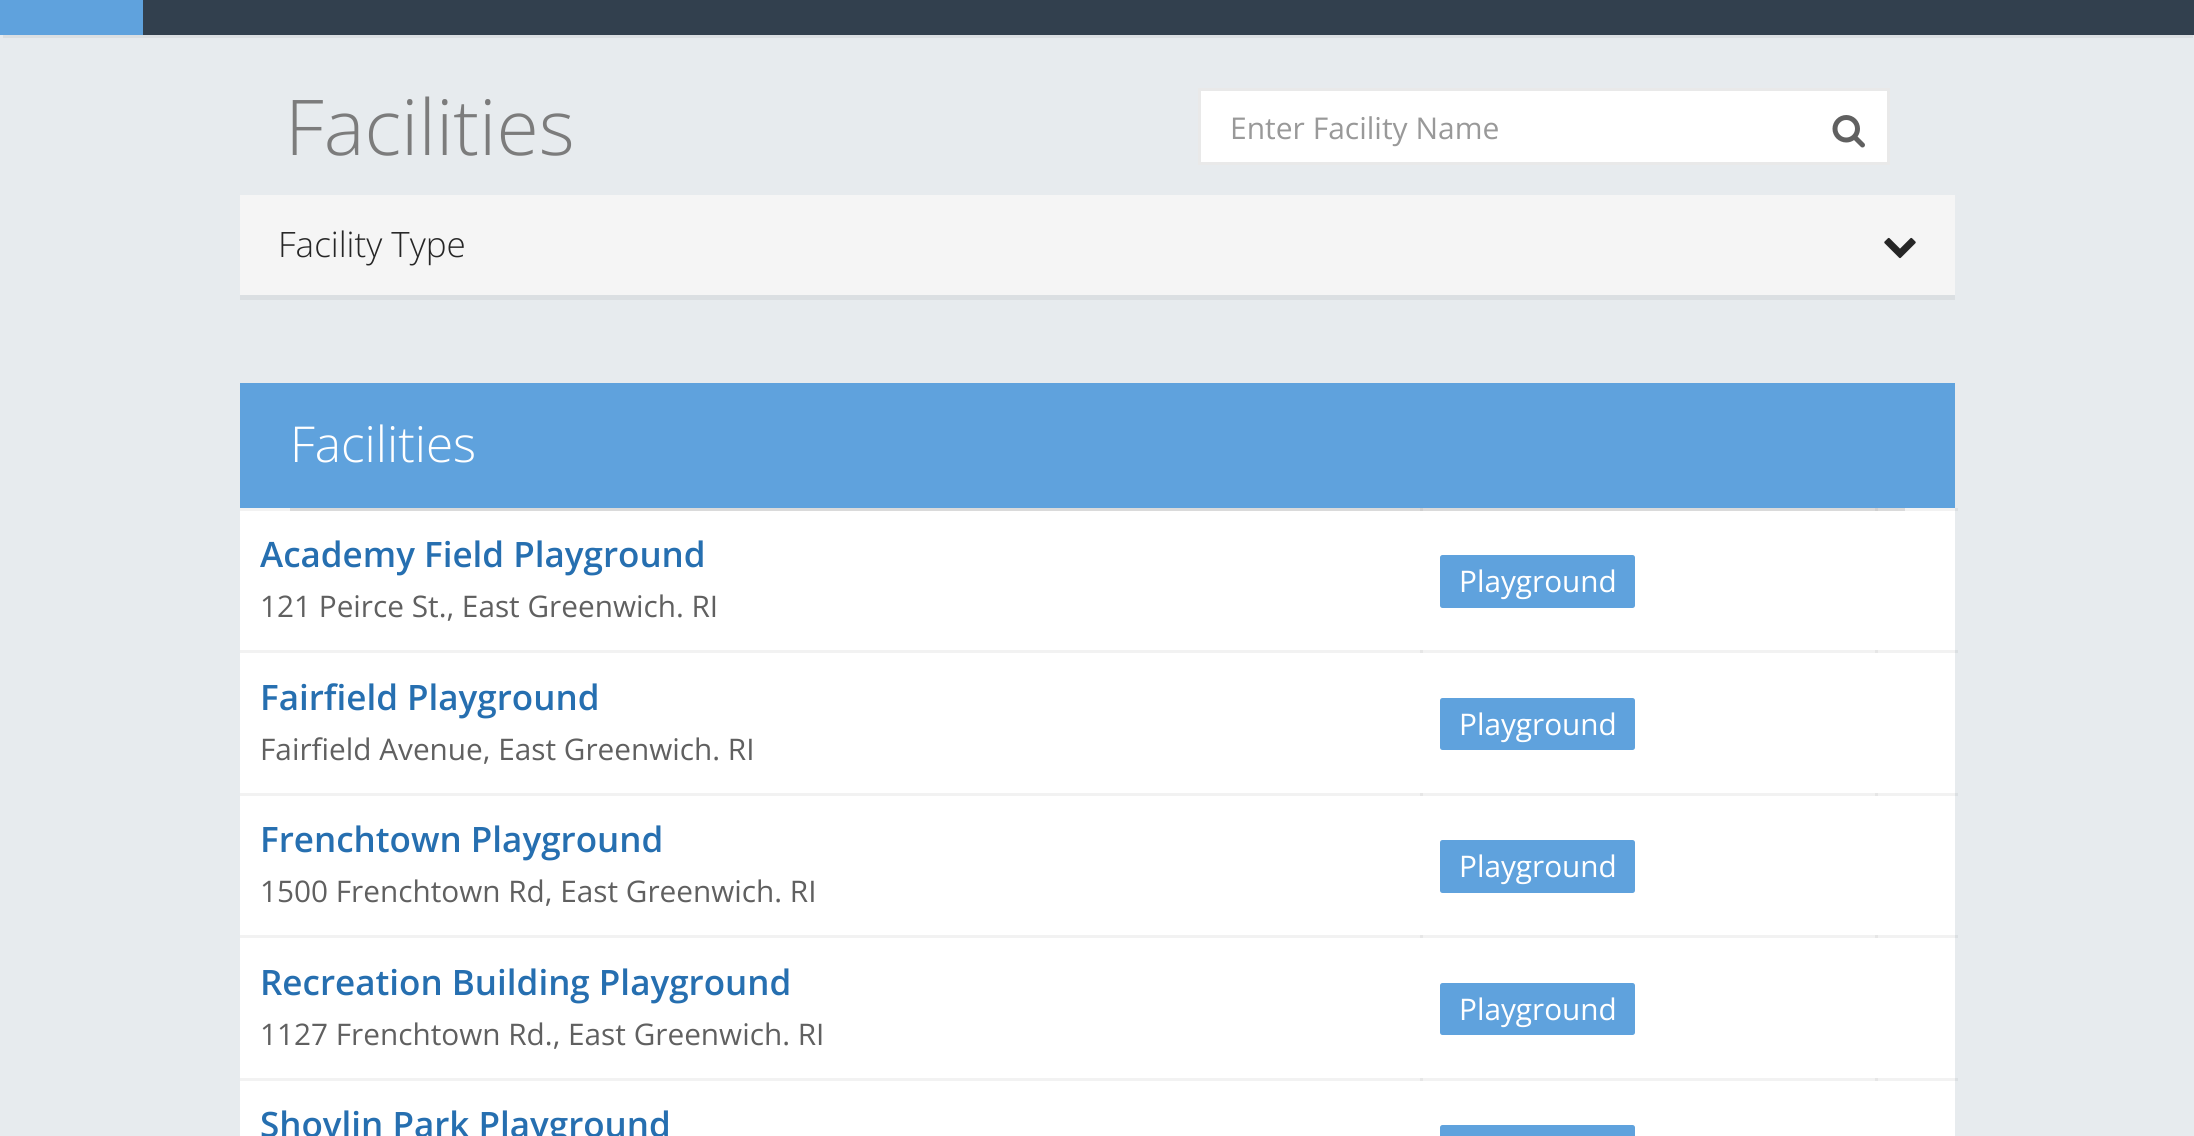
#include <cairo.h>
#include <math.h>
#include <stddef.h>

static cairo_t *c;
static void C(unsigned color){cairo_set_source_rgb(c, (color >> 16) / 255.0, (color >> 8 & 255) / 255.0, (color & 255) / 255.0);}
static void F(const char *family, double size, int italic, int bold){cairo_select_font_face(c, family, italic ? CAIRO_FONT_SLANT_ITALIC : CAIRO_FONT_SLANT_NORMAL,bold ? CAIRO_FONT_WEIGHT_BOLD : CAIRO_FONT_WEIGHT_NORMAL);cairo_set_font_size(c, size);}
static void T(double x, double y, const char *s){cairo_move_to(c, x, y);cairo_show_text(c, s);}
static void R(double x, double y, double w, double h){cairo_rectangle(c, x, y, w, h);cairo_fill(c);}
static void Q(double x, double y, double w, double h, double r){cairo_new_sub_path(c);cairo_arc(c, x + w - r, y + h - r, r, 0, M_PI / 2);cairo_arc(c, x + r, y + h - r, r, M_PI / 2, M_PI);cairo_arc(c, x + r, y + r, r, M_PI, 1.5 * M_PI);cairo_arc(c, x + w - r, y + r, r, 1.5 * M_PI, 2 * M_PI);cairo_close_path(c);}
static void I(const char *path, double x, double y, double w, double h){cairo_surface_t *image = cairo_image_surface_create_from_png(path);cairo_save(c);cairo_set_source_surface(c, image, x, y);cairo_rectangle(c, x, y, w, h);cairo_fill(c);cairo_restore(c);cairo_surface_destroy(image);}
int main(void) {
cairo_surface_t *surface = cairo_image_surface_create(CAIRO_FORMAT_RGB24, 2194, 1136);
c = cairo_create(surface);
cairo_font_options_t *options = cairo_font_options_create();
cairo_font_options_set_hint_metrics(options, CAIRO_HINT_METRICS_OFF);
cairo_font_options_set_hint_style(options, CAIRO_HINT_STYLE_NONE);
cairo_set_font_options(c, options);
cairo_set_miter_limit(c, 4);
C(0xe7ebee);
cairo_paint(c);
C(0xdbdfe2);
R(1955,508,3,3);
R(1955,650,3,3);
R(1955,793,3,3);
R(1955,935,3,3);
R(1955,1078,3,3);
R(3,35,2190,3);
C(0x32404e);
R(143,0,2051,35);
C(0x5fa2dd);
R(0,0,143,35);
F("Open Sans Light",77,0,0);
C(0x7c7c7c);
T(285,155,"Facilities");
C(0xffffff);
cairo_rectangle(c,1199.5,89.5,689,74);
cairo_fill_preserve(c);
C(0xe9e9e9);
cairo_set_line_width(c,3);
cairo_stroke(c);
F("Open Sans",30,0,0);
C(0x999999);
T(1230,139,"Enter Facility Name");
I("1.png",1832,115,33,33);
C(0xdbdfe2);
R(240,295,1715,5);
C(0xf5f5f5);
R(240,195,1715,100);
F("Open Sans Light",35,0,0);
C(0x262626);
T(278,257,"Facility Type");
I("2.png",1884,237,32,22);
C(0xffffff);
R(240,511,1715,625);
C(0xf2f2f2);
R(240,508,50,3);
C(0xdadada);
R(290,508,1615,3);
C(0xcfcfcf);
R(1420,508,3,3);
C(0xf2f2f2);
R(1905,508,50,3);
C(0xcfcfcf);
R(1875,508,3,3);
C(0xf2f2f2);
R(240,650,1715,3);
C(0xe6e6e6);
R(1420,650,3,3);
R(1875,650,3,3);
C(0xf2f2f2);
R(240,793,1715,3);
C(0xe6e6e6);
R(1420,793,3,3);
R(1875,793,3,3);
C(0xf2f2f2);
R(240,935,1715,3);
C(0xe6e6e6);
R(1420,935,3,3);
R(1875,935,3,3);
C(0xf2f2f2);
R(240,1078,1715,3);
C(0xe6e6e6);
R(1420,1078,3,3);
R(1875,1078,3,3);
C(0x5fa2dd);
R(240,383,1715,125);
F("Open Sans Light",49.5,0,0);
C(0xffffff);
T(290,462,"Facilities");
F("Open Sans SemiBold",35,0,0);
C(0x266fb0);
T(260,567,"Academy Field Playground");
F("Open Sans",29.75,0,0);
C(0x606060);
T(260,617,"121 Peirce St., East Greenwich. RI");
C(0x5fa2dd);
Q(1440,555,195,53,2.5);
cairo_fill(c);
C(0xffffff);
T(1459,592,"Playground");
F("Open Sans SemiBold",35,0,0);
C(0x266fb0);
T(260,710,"Fairfield Playground");
F("Open Sans",29.75,0,0);
C(0x606060);
T(260,760,"Fairfield Avenue, East Greenwich. RI");
C(0x5fa2dd);
Q(1440,698,195,52,2.5);
cairo_fill(c);
C(0xffffff);
T(1459,735,"Playground");
F("Open Sans SemiBold",35,0,0);
C(0x266fb0);
T(260,852,"Frenchtown Playground");
F("Open Sans",29.75,0,0);
C(0x606060);
T(260,902,"1500 Frenchtown Rd, East Greenwich. RI");
C(0x5fa2dd);
Q(1440,840,195,53,2.5);
cairo_fill(c);
C(0xffffff);
T(1459,877,"Playground");
F("Open Sans SemiBold",35,0,0);
C(0x266fb0);
T(260,995,"Recreation Building Playground");
F("Open Sans",29.75,0,0);
C(0x606060);
T(260,1045,"1127 Frenchtown Rd., East Greenwich. RI");
C(0x5fa2dd);
Q(1440,983,195,52,2.5);
cairo_fill(c);
C(0xffffff);
T(1459,1020,"Playground");
F("Open Sans SemiBold",35,0,0);
C(0x266fb0);
T(260,1137,"Shovlin Park Playground");
C(0x5fa2dd);
Q(1440,1125,195,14,2.5);
cairo_fill(c);
cairo_surface_write_to_png(surface, "o.png");
cairo_font_options_destroy(options);
cairo_destroy(c);
cairo_surface_destroy(surface);
return 0;
}
